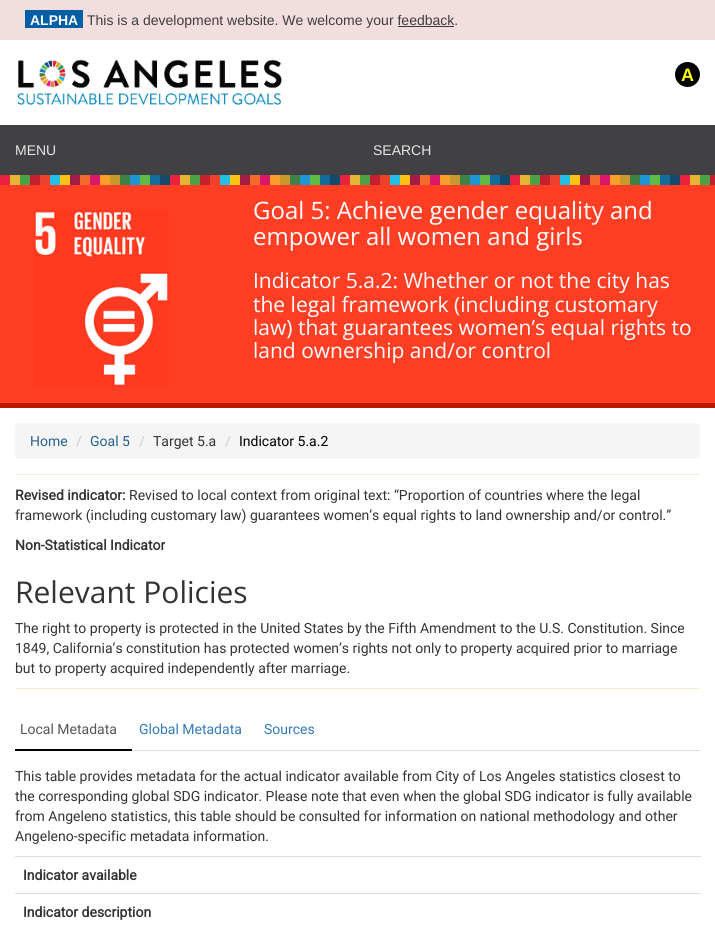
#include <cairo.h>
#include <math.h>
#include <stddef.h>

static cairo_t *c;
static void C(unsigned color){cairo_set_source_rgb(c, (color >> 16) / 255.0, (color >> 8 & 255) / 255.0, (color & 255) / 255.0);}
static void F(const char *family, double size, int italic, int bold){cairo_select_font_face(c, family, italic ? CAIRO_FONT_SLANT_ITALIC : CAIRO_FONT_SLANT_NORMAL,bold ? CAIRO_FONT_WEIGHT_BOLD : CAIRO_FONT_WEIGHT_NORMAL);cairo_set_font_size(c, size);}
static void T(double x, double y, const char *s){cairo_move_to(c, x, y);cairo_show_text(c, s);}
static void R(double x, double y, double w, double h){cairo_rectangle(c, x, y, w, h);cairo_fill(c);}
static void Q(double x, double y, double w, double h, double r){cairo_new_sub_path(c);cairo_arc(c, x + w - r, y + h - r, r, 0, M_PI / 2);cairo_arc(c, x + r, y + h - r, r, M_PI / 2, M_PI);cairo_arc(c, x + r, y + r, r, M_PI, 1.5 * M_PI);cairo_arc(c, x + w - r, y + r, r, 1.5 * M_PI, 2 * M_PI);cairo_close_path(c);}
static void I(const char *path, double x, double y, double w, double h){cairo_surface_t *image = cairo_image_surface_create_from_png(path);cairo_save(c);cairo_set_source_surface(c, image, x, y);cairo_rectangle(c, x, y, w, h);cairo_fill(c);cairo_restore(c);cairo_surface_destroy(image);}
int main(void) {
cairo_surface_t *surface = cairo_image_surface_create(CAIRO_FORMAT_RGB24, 715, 930);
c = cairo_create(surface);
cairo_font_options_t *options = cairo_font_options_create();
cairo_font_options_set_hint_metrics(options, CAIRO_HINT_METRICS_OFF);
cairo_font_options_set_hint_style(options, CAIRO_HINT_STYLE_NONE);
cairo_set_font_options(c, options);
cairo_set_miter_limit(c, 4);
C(0xf2dede);
cairo_paint(c);
C(0x005ea5);
R(25,10,58,18);
F("Liberation Sans",14,0,1);
C(0xffffff);
T(30,25,"ALPHA");
F("Liberation Sans",14,0,0);
C(0x3d3d3d);
T(87,25,"This is a development website. We welcome your feedback.");
R(398,26,56,1);
C(0xffffff);
R(0,40,715,85);
I("1.png",0,175,715,10);
I("2.png",17,59,265,46);
C(0x000000);
cairo_arc(c,687.5,74.5,12.5,0,2 * M_PI);
cairo_fill(c);
F("Liberation Sans",18,0,1);
C(0xffff00);
T(681,81,"A");
C(0x414042);
R(0,125,715,50);
F("Liberation Sans",14,0,0);
C(0xe5e6e7);
T(15,155,"MENU");
T(373,155,"SEARCH");
C(0xff3e24);
R(0,185,715,218);
C(0xbd1600);
R(0,403,715,5);
I("3.png",34,210,135,177);
F("Open Sans",24,0,0);
C(0xffffff);
T(253,219,"Goal 5: Achieve gender equality and");
T(253,245,"empower all women and girls");
F("Open Sans",21,0,0);
T(253,288,"Indicator 5.a.2: Whether or not the city has");
T(253,312,"the legal framework (including customary");
T(253,335,"law) that guarantees women’s equal rights to");
T(253,358,"land ownership and/or control");
R(0,408,715,522);
C(0xf5f5f5);
Q(15,423,685,36,4);
cairo_fill(c);
F("Roboto",14,0,0);
C(0x285f8f);
T(30,446,"Home");
C(0xcccccc);
T(76,446,"/");
C(0x285f8f);
T(90,446,"Goal 5");
C(0xcccccc);
T(139,446,"/");
C(0x333333);
T(153,446,"Target 5.a");
C(0xcccccc);
T(225,446,"/");
C(0x000000);
T(239,446,"Indicator 5.a.2");
C(0xfaebcc);
R(15,474,685,1);
R(15,688,685,1);
F("Roboto",14,0,1);
C(0x333333);
T(15,500,"Revised indicator:");
F("Roboto",14,0,0);
T(129,500,"Revised to local context from original text: “Proportion of countries where the legal");
T(15,520,"framework (including customary law) guarantees women’s equal rights to land ownership and/or control.”");
F("Roboto",14,0,1);
T(15,550,"Non-Statistical Indicator");
F("Open Sans",30,0,0);
T(15,603,"Relevant Policies");
F("Roboto",14,0,0);
T(15,633,"The right to property is protected in the United States by the Fifth Amendment to the U.S. Constitution. Since");
T(15,653,"1849, California’s constitution has protected women’s rights not only to property acquired prior to marriage");
T(15,673,"but to property acquired independently after marriage.");
C(0xdddddd);
R(132,750,568,1);
C(0x000000);
R(15,749,117,2);
C(0x555555);
T(20,734,"Local Metadata");
C(0x337ab7);
T(139,734,"Global Metadata");
T(264,734,"Sources");
C(0x333333);
T(15,781,"This table provides metadata for the actual indicator available from City of Los Angeles statistics closest to");
T(15,801,"the corresponding global SDG indicator. Please note that even when the global SDG indicator is fully available");
T(15,821,"from Angeleno statistics, this table should be consulted for information on national methodology and other");
T(15,841,"Angeleno-specific metadata information.");
C(0xdddddd);
R(15,856,686,1);
F("Roboto",14,0,1);
C(0x333333);
T(23,880,"Indicator available");
C(0xdddddd);
R(15,893,686,1);
C(0x333333);
T(23,917,"Indicator description");
cairo_surface_write_to_png(surface, "o.png");
cairo_font_options_destroy(options);
cairo_destroy(c);
cairo_surface_destroy(surface);
return 0;
}
